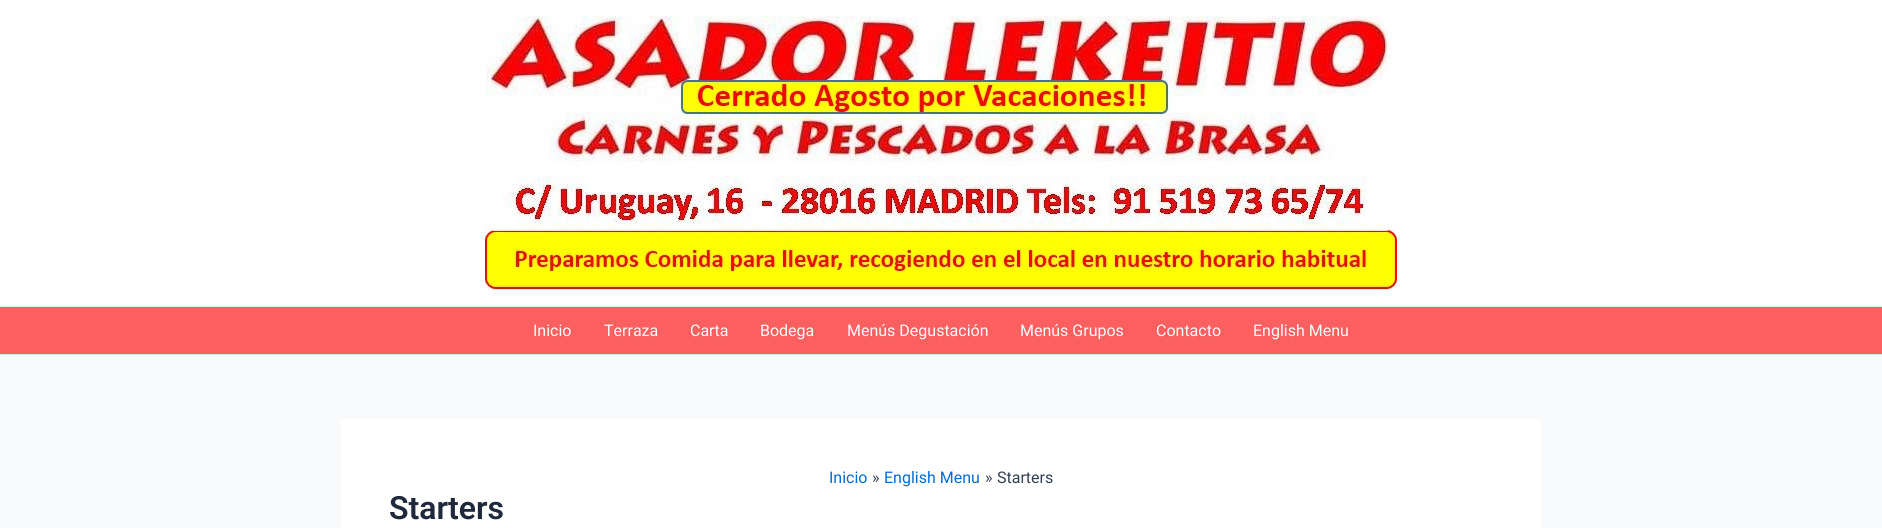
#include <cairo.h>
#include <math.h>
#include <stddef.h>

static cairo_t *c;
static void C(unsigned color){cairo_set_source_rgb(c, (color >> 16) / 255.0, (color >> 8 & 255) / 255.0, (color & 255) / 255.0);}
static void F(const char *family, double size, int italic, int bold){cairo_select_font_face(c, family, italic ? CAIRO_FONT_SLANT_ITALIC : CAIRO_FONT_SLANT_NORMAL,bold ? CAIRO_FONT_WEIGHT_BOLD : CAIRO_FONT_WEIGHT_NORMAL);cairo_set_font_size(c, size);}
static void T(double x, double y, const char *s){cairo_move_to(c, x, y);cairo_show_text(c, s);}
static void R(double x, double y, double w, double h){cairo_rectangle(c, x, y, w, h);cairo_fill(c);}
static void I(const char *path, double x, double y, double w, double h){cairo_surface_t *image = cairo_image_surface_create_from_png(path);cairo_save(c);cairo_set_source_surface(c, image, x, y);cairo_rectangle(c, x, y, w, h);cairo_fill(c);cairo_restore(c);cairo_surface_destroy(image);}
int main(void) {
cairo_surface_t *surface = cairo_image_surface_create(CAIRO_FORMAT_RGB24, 1882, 528);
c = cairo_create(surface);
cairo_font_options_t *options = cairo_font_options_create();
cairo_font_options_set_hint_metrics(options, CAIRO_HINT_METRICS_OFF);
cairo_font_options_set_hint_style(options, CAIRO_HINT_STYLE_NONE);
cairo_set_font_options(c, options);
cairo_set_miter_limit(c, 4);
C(0xf9fafb);
cairo_paint(c);
C(0xffffff);
R(0,0,1882,306);
C(0xe2e8f0);
R(0,306,1882,1);
I("1.png",485,16,912,274);
C(0xfb5f5f);
R(0,307,1882,47);
C(0xe2e8f0);
R(0,354,1882,1);
F("Roboto",16,0,0);
C(0xf9fafb);
T(533,336,"Inicio");
T(604,336,"Terraza");
T(690,336,"Carta");
T(760,336,"Bodega");
T(847,336,"Menús Degustación");
T(1020,336,"Menús Grupos");
T(1156,336,"Contacto");
T(1253,336,"English Menu");
C(0xffffff);
R(341,419,1200,109);
C(0x046bd2);
T(829,483,"Inicio");
C(0x334155);
T(872,483,"»");
C(0x046bd2);
T(884,483,"English Menu");
C(0x334155);
T(985,483,"»");
T(997,483,"Starters");
F("Roboto SemiBold",32,0,0);
C(0x1e293b);
T(389,519,"Starters");
cairo_surface_write_to_png(surface, "o.png");
cairo_font_options_destroy(options);
cairo_destroy(c);
cairo_surface_destroy(surface);
return 0;
}
